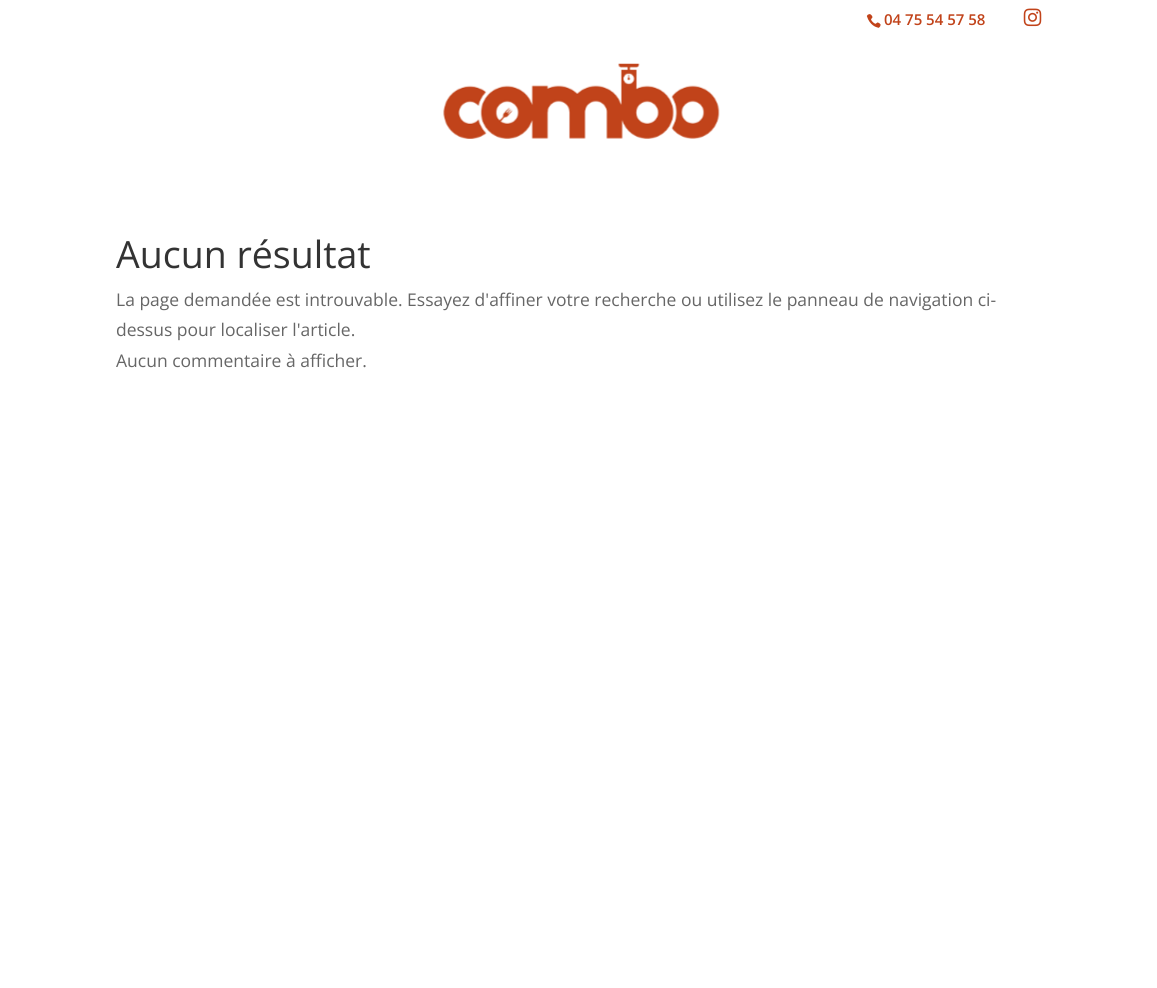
#include <cairo.h>
#include <math.h>
#include <stddef.h>

static cairo_t *c;
static void C(unsigned color){cairo_set_source_rgb(c, (color >> 16) / 255.0, (color >> 8 & 255) / 255.0, (color & 255) / 255.0);}
static void F(const char *family, double size, int italic, int bold){cairo_select_font_face(c, family, italic ? CAIRO_FONT_SLANT_ITALIC : CAIRO_FONT_SLANT_NORMAL,bold ? CAIRO_FONT_WEIGHT_BOLD : CAIRO_FONT_WEIGHT_NORMAL);cairo_set_font_size(c, size);}
static void T(double x, double y, const char *s){cairo_move_to(c, x, y);cairo_show_text(c, s);}
static void I(const char *path, double x, double y, double w, double h){cairo_surface_t *image = cairo_image_surface_create_from_png(path);cairo_save(c);cairo_set_source_surface(c, image, x, y);cairo_rectangle(c, x, y, w, h);cairo_fill(c);cairo_restore(c);cairo_surface_destroy(image);}
int main(void) {
cairo_surface_t *surface = cairo_image_surface_create(CAIRO_FORMAT_RGB24, 1157, 988);
c = cairo_create(surface);
cairo_font_options_t *options = cairo_font_options_create();
cairo_font_options_set_hint_metrics(options, CAIRO_HINT_METRICS_OFF);
cairo_font_options_set_hint_style(options, CAIRO_HINT_STYLE_NONE);
cairo_set_font_options(c, options);
cairo_set_miter_limit(c, 4);
C(0xffffff);
cairo_paint(c);
I("1.png",866,14,15,14);
F("Open Sans SemiBold",15,0,0);
C(0xc1431a);
T(884,25,"04 75 54 57 58");
I("2.png",1023,8,19,19);
I("3.png",443,63,277,76);
F("Open Sans",37.5,0,0);
C(0x333333);
T(116,268,"Aucun résultat");
F("Open Sans",17.5,0,0);
C(0x666666);
T(116,306,"La page demandée est introuvable. Essayez d'affiner votre recherche ou utilisez le panneau de navigation ci-");
T(116,336,"dessus pour localiser l'article.");
T(116,367,"Aucun commentaire à afficher.");
cairo_surface_write_to_png(surface, "o.png");
cairo_font_options_destroy(options);
cairo_destroy(c);
cairo_surface_destroy(surface);
return 0;
}
